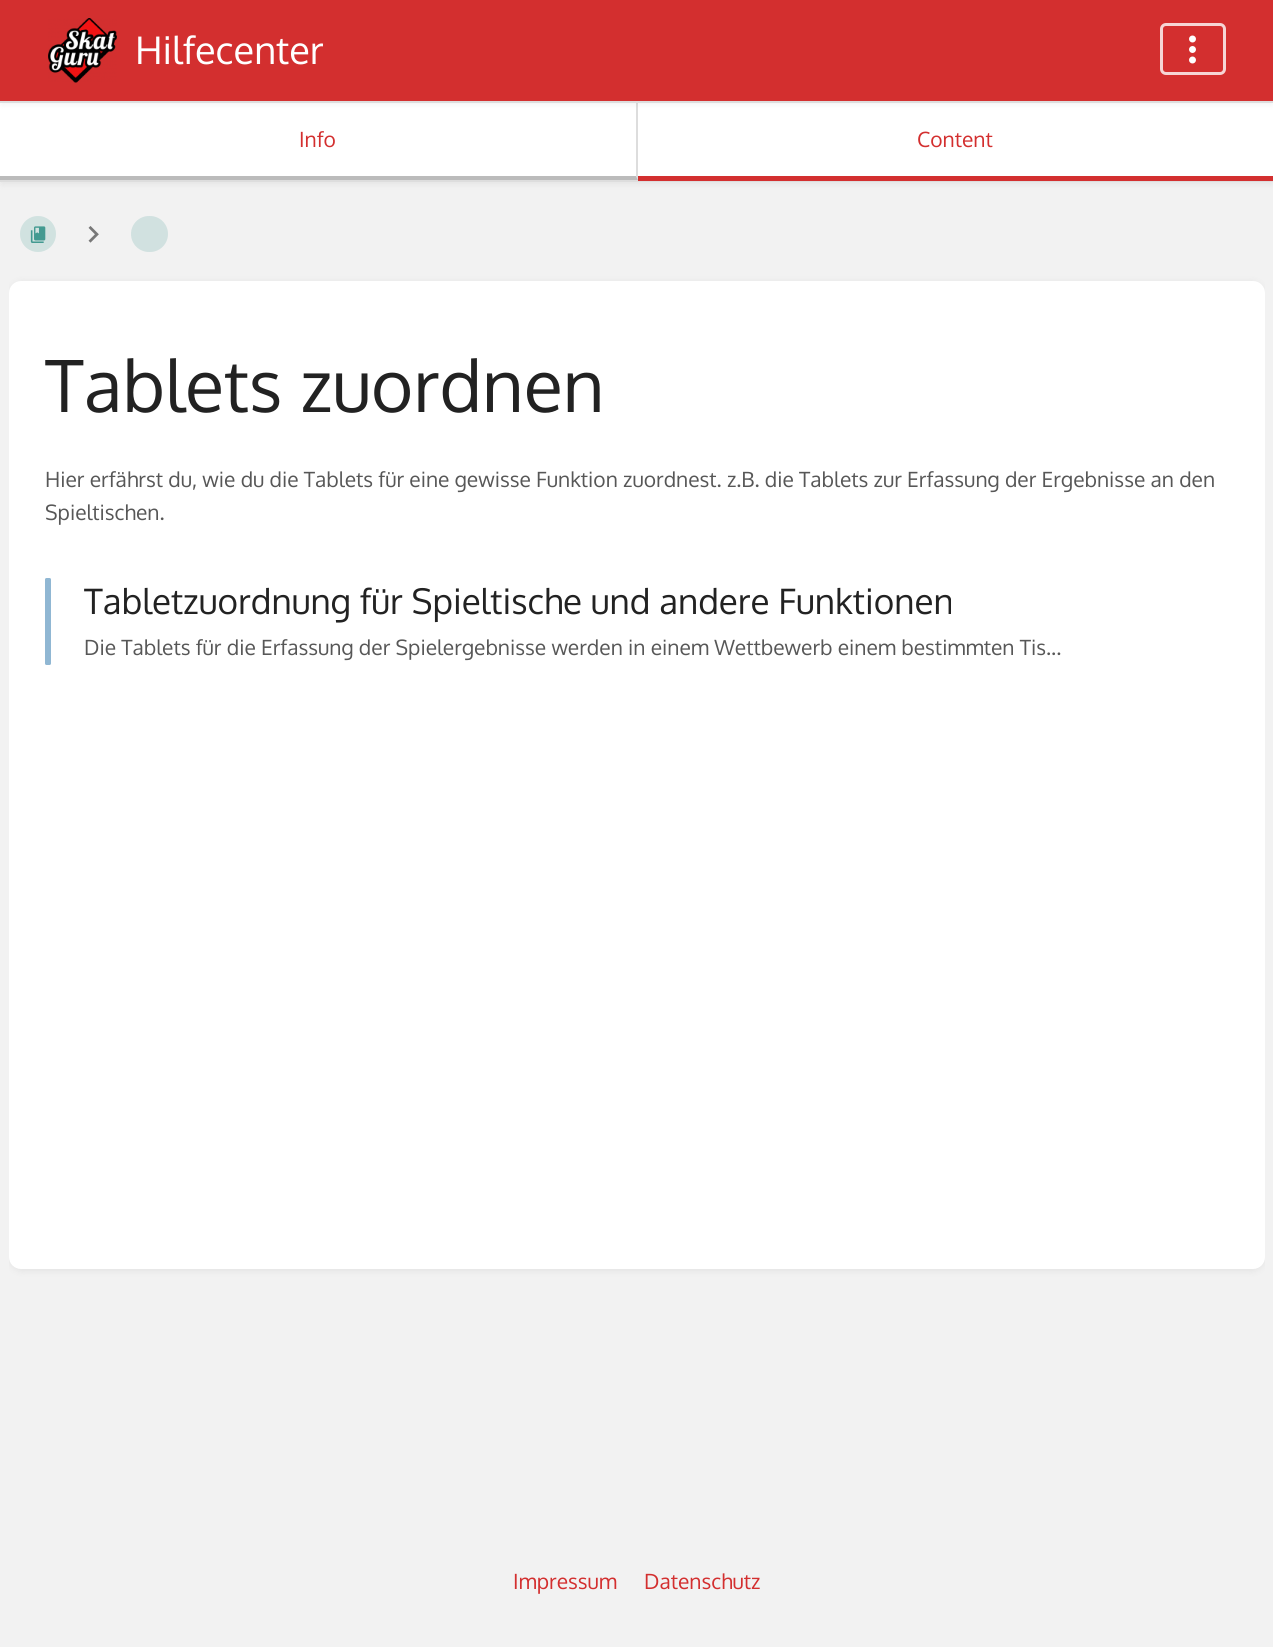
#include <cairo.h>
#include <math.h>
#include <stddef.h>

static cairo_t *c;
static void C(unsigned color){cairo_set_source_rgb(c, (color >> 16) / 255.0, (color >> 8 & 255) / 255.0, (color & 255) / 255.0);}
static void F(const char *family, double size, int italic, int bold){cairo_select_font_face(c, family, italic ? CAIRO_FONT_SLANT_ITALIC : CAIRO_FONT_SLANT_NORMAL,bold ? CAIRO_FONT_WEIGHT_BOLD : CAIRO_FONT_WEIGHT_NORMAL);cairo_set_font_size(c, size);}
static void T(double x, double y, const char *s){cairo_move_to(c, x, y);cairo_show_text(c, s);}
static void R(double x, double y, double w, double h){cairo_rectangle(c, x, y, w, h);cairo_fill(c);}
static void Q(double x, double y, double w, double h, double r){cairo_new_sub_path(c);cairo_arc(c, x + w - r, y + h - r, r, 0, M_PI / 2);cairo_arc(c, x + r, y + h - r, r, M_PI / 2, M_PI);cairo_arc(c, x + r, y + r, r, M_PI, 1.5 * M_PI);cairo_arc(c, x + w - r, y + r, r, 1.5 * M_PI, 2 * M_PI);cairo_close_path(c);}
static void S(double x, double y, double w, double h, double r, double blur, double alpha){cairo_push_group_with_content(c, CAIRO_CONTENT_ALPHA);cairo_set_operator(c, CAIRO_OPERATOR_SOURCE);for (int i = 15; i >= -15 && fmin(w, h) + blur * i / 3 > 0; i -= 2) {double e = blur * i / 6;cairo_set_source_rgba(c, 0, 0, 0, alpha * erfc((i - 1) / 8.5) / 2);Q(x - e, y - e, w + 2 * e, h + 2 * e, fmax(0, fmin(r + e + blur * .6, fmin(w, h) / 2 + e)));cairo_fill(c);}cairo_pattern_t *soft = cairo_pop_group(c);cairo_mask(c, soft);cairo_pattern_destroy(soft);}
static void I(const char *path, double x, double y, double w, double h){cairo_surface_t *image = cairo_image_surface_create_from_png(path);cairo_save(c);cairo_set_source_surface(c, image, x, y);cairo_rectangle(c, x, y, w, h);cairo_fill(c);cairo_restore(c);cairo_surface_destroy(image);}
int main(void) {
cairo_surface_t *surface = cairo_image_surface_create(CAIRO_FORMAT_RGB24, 1273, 1647);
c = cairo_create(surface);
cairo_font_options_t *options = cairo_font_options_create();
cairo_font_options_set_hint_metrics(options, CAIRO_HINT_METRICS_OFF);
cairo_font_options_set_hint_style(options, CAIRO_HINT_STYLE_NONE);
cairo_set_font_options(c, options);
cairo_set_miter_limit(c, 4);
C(0xf2f2f2);
cairo_paint(c);
C(0x000000);
S(2,105,1270,77,0,4.5,.1);
C(0xffffff);
R(0,103,1273,77);
C(0xdddddd);
cairo_new_path(c);
cairo_move_to(c,638,102);
cairo_line_to(c,638,180);
cairo_line_to(c,636,176);
cairo_line_to(c,636,102);
cairo_close_path(c);
cairo_fill(c);
C(0x000000);
S(2,3,1270,99,0,4.5,.1);
C(0xd32f2f);
R(0,0,1273,101);
C(0xdddddd);
R(0,101,1273,2);
I("1.png",48,18,69,65);
F("Oxygen",38,0,0);
C(0xffffff);
T(135,64,"Hilfecenter");
Q(1161.5,24.5,63,49,4.5);
C(0xf6d5d5);
cairo_set_line_width(c,3);
cairo_stroke(c);
I("2.png",1189,35,7,29);
C(0xdddddd);
R(0,180,1273,2);
C(0xbbbbbb);
cairo_new_path(c);
cairo_move_to(c,638,180);
cairo_line_to(c,0,180);
cairo_line_to(c,0,176);
cairo_line_to(c,636,176);
cairo_close_path(c);
cairo_fill(c);
F("Oxygen",21,0,0);
C(0xd32f2f);
T(299,147,"Info");
R(638,176,635,5);
T(917,147,"Content");
I("3.png",30,226,16,17);
cairo_set_source_rgba(c,0.027,0.482,0.439,0.14);
cairo_arc(c,38,234,18,0,2 * M_PI);
cairo_fill(c);
I("4.png",88,226,11,17);
C(0xd1e1e0);
Q(131,216,37,36,18);
cairo_fill(c);
cairo_save(c);
cairo_rectangle(c,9,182,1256,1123);
cairo_clip(c);
C(0x000000);
S(11,284,1252,985,11,4.5,.1);
cairo_restore(c);
C(0xffffff);
Q(9,281,1256,988,12);
cairo_fill(c);
F("Oxygen",72,0,0);
C(0x222222);
T(45,412,"Tablets zuordnen");
F("Oxygen",21,0,0);
C(0x575757);
T(45,487,"Hier erfährst du, wie du die Tablets für eine gewisse Funktion zuordnest. z.B. die Tablets zur Erfassung der Ergebnisse an den");
T(45,520,"Spieltischen.");
C(0x90b7d3);
Q(45,578,6,87,1.5);
cairo_fill(c);
F("Oxygen",35,0,0);
C(0x222222);
T(84,614,"Tabletzuordnung für Spieltische und andere Funktionen");
F("Oxygen",21,0,0);
C(0x575757);
T(84,655,"Die Tablets für die Erfassung der Spielergebnisse werden in einem Wettbewerb einem bestimmten Tis...");
C(0xd32f2f);
T(513,1589,"Impressum");
T(644,1589,"Datenschutz");
cairo_surface_write_to_png(surface, "o.png");
cairo_font_options_destroy(options);
cairo_destroy(c);
cairo_surface_destroy(surface);
return 0;
}
